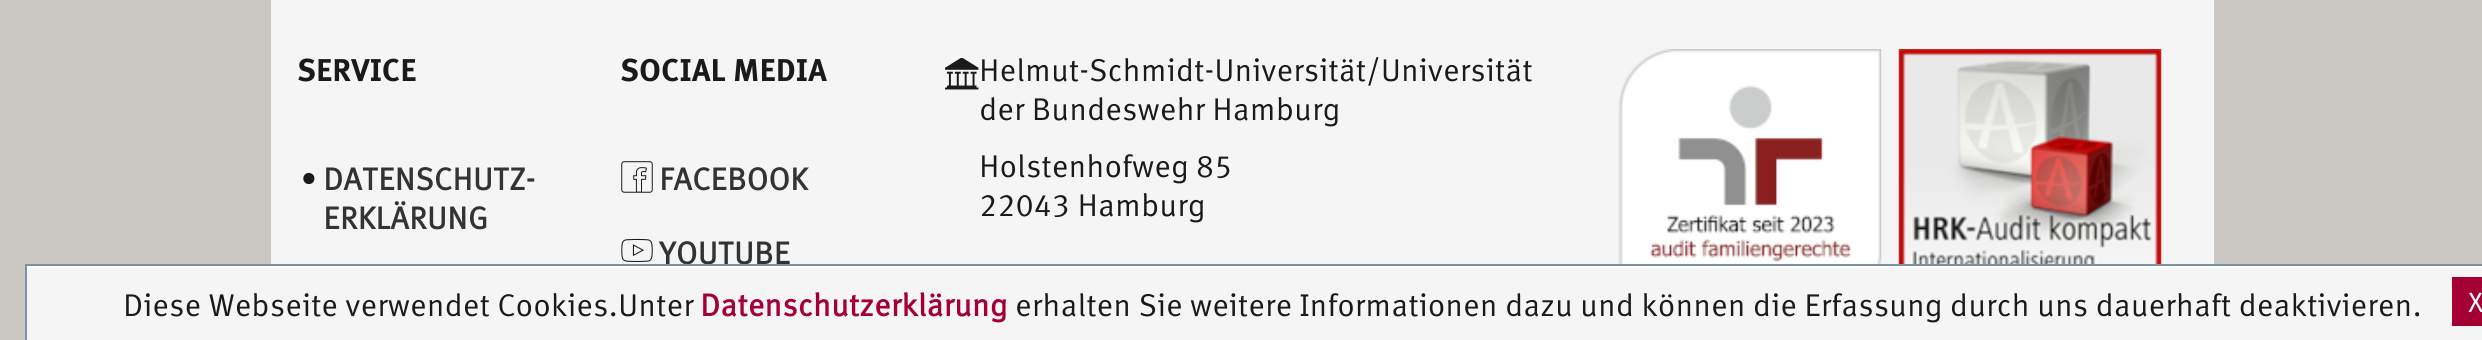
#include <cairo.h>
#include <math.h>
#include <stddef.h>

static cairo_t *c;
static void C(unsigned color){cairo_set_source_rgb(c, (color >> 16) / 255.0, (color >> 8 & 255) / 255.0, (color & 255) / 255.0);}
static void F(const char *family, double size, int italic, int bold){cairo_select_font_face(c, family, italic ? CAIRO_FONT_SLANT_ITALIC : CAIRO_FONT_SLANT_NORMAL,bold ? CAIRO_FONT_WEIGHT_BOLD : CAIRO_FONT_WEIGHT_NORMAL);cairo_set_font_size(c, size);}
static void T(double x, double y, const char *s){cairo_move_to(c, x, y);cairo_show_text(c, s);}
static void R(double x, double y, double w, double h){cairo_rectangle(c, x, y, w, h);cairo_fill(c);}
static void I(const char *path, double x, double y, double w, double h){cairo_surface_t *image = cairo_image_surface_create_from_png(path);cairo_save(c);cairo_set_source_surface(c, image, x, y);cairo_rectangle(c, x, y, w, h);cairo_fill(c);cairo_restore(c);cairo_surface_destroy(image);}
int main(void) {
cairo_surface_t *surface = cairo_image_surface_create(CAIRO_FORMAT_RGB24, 2482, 340);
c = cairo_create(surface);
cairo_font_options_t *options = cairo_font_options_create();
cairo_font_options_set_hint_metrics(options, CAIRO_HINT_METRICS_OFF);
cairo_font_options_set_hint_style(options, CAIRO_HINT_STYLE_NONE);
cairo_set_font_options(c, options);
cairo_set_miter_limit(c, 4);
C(0xcbc7c3);
cairo_paint(c);
C(0xf6f5f5);
R(271,0,1943,264);
F("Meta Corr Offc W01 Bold",31.5,0,1);
C(0x1a1a1a);
T(297,81,"SERVICE");
F("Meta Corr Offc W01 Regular",70,0,1);
T(297,199,"·");
F("Meta Corr Offc W01 Regular",31.5,0,1);
C(0x333333);
T(323,190,"DATENSCHUTZ-");
T(323,229,"ERKLÄRUNG");
F("Meta Corr Offc W01 Bold",31.5,0,1);
C(0x1a1a1a);
T(620,81,"SOCIAL MEDIA");
I("1.png",621,161,32,32);
F("Meta Corr Offc W01 Regular",31.5,0,1);
C(0x333333);
T(659,190,"FACEBOOK");
I("2.png",621,238,32,24);
T(659,264,"YOUTUBE");
I("3.png",945,58,34,32);
F("Meta Corr Offc W01 Regular",31.5,0,0);
C(0x1a1a1a);
T(979,81,"Helmut-Schmidt-Universität/Universität");
T(979,120,"der Bundeswehr Hamburg");
T(979,177,"Holstenhofweg 85");
T(979,216,"22043 Hamburg");
I("4.png",1618,49,264,215);
I("5.png",1898,49,264,215);
C(0xf6f5f5);
R(27,268,2455,72);
C(0xffffff);
R(26,266,2456,2);
cairo_rectangle(c,26,265,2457,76);
C(0x7b92a9);
cairo_stroke(c);
C(0x1a1a1a);
T(123,316,"Diese Webseite verwendet Cookies.Unter");
F("Meta Corr Offc W01 Regular",31.5,0,1);
C(0xa50034);
T(700,316,"Datenschutzerklärung");
F("Meta Corr Offc W01 Regular",31.5,0,0);
C(0x1a1a1a);
T(1015,316,"erhalten Sie weitere Informationen dazu und können die Erfassung durch uns dauerhaft deaktivieren.");
C(0xa50034);
R(2452,277,30,49);
F("Meta Corr Offc W01 Regular",28,0,0);
C(0xffffff);
T(2468,312,"X");
cairo_surface_write_to_png(surface, "o.png");
cairo_font_options_destroy(options);
cairo_destroy(c);
cairo_surface_destroy(surface);
return 0;
}
